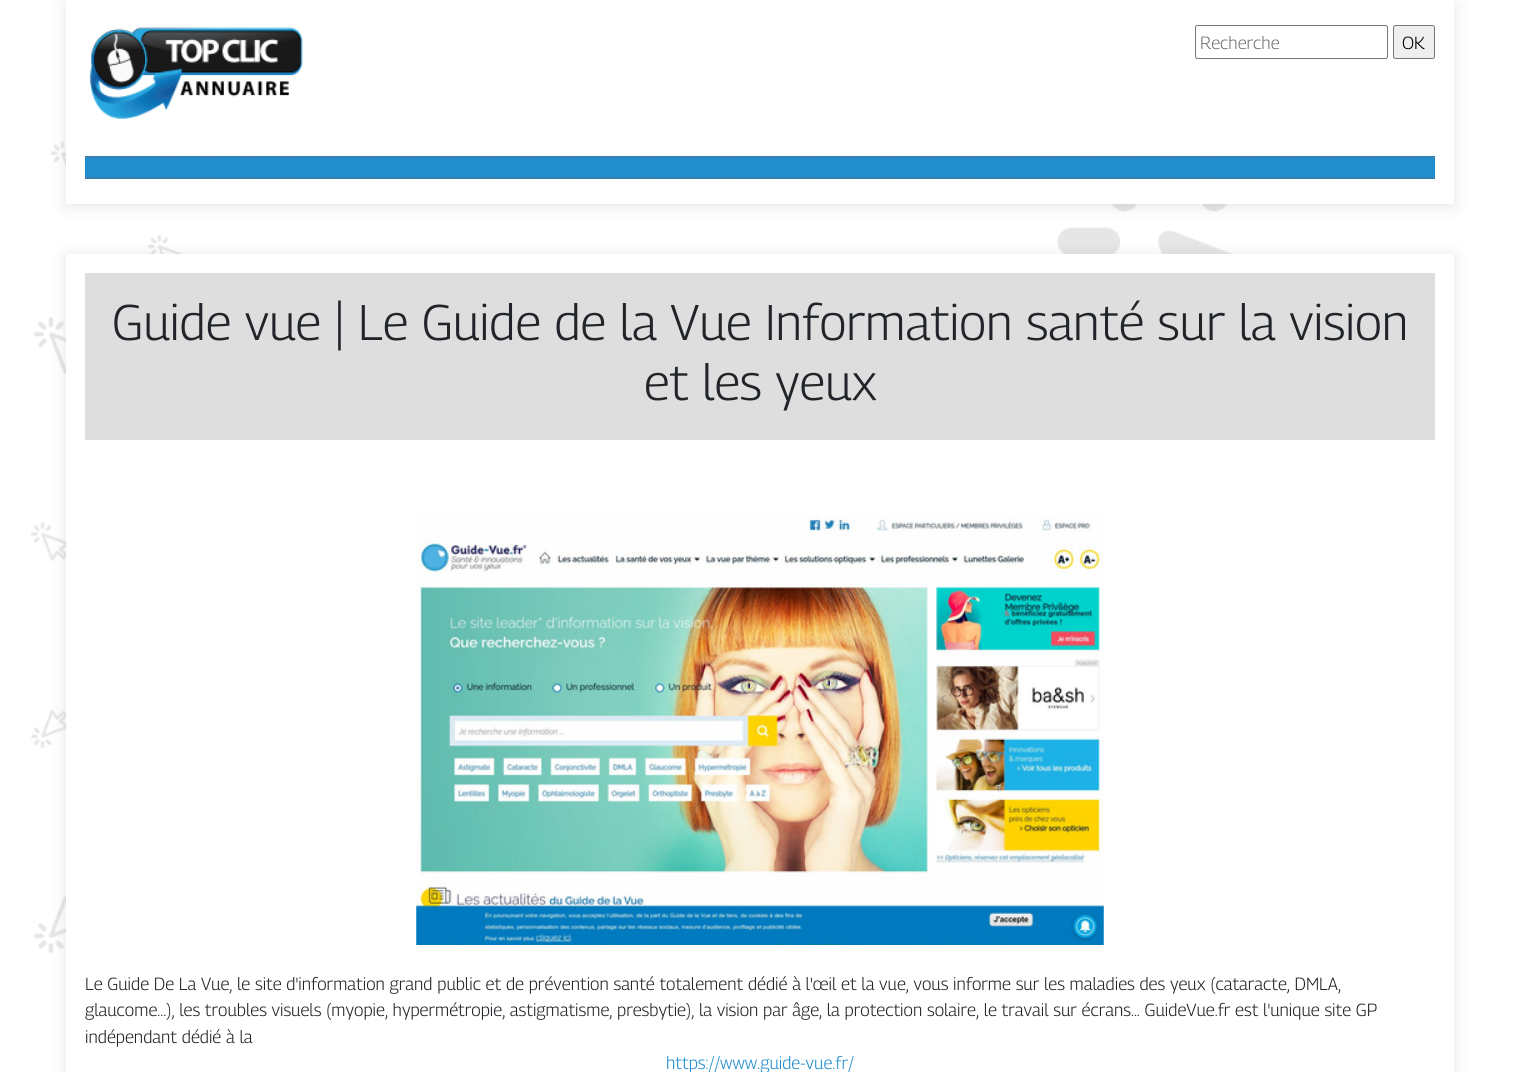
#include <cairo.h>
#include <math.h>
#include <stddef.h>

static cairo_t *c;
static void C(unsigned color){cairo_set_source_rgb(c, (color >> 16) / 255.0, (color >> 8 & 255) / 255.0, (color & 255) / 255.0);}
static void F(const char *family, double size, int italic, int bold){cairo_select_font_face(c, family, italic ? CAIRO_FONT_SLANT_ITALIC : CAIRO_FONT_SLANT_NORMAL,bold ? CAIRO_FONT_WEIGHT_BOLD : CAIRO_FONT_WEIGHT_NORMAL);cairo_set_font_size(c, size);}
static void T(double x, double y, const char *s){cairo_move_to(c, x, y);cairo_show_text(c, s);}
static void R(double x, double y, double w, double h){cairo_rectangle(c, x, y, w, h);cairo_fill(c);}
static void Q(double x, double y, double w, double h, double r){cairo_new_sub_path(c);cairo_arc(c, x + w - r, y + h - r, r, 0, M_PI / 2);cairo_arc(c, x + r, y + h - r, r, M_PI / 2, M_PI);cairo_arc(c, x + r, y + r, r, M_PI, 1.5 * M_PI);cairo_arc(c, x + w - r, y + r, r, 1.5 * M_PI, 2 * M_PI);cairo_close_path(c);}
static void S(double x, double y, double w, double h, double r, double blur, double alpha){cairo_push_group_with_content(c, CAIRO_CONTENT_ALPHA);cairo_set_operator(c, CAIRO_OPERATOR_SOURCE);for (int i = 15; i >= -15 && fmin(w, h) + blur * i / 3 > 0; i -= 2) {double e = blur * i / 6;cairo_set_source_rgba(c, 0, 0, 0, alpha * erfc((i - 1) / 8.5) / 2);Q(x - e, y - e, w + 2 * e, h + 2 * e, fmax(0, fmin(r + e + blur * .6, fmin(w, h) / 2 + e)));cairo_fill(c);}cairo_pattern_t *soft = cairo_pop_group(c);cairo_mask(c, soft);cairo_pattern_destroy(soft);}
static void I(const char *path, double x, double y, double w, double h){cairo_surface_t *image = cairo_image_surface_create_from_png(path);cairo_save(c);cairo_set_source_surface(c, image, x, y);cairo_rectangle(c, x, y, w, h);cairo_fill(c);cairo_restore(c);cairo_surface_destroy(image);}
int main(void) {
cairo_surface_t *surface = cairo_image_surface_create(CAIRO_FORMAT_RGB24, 1519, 1072);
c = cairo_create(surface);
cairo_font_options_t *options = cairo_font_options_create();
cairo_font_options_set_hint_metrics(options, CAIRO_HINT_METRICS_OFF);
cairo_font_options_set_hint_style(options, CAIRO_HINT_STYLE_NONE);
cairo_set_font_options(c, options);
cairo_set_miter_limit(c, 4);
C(0xffffff);
cairo_paint(c);
I("1.png",31,141,1202,813);
C(0x000000);
S(66,3,1388,203,0,8,.1);
C(0xffffff);
R(66,0,1388,204);
I("2.png",89,27,214,92);
Q(1195.5,25.5,192,33,2);
C(0x767676);
cairo_set_line_width(c,1);
cairo_stroke(c);
F("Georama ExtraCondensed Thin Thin",17.5,0,0);
C(0x757575);
T(1200,49,"Recherche");
C(0xefefef);
Q(1393.5,25.5,41,33,2);
cairo_fill_preserve(c);
C(0x767676);
cairo_stroke(c);
C(0x000000);
T(1402,49,"OK");
C(0x218dcc);
R(85,156,1350,23);
cairo_new_path(c);
cairo_move_to(c,85,157);
cairo_line_to(c,1435,157);
C(0x666666);
cairo_set_line_width(c,1.2);
cairo_set_dash(c,(double[]){1.25,1.25},2,0);
cairo_stroke(c);
cairo_new_path(c);
cairo_move_to(c,85,178);
cairo_line_to(c,1435,178);
cairo_stroke(c);
C(0x000000);
S(66,256,1388,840,0,8,.1);
C(0xffffff);
R(66,254,1388,818);
C(0xdedede);
R(85,273,1350,167);
F("Georama ExtraCondensed Thin Thin",50,0,0);
C(0x212529);
T(112,340,"Guide vue | Le Guide de la Vue Information santé sur la vision");
T(644,400,"et les yeux");
I("3.png",416,515,688,430);
F("Georama ExtraCondensed Thin Thin",17.5,0,0);
T(85,990,"Le Guide De La Vue, le site d'information grand public et de prévention santé totalement dédié à l'œil et la vue, vous informe sur les maladies des yeux (cataracte, DMLA,");
T(85,1016,"glaucome...), les troubles visuels (myopie, hypermétropie, astigmatisme, presbytie), la vision par âge, la protection solaire, le travail sur écrans... GuideVue.fr est l'unique site GP");
T(85,1043,"indépendant dédié à la");
C(0x218dcc);
T(666,1069,"https://www.guide-vue.fr/");
cairo_surface_write_to_png(surface, "o.png");
cairo_font_options_destroy(options);
cairo_destroy(c);
cairo_surface_destroy(surface);
return 0;
}
